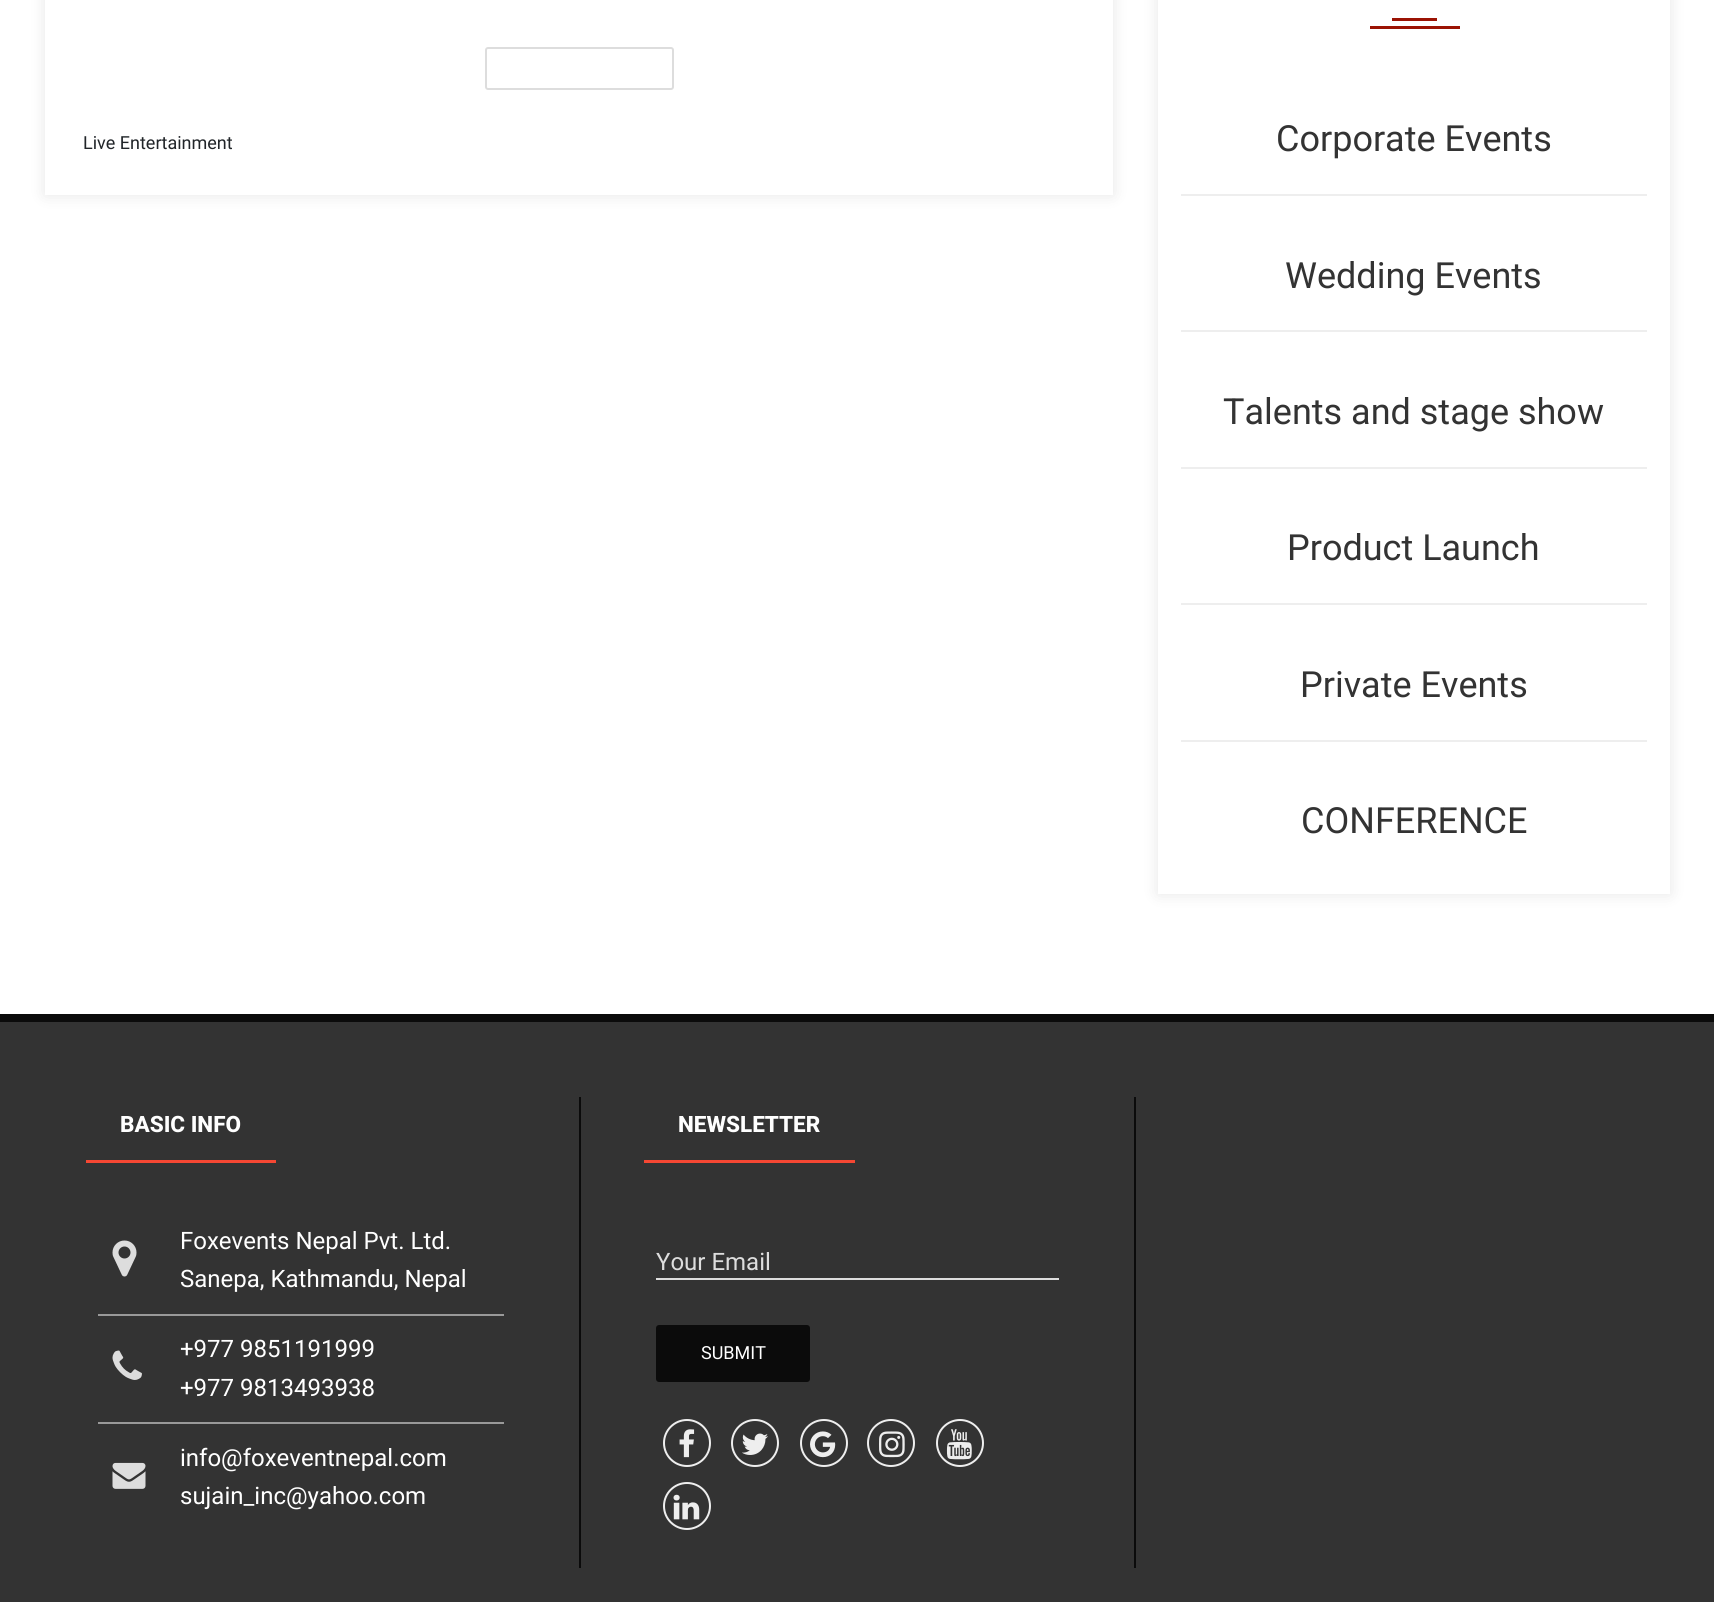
#include <cairo.h>
#include <math.h>
#include <stddef.h>

static cairo_t *c;
static void C(unsigned color){cairo_set_source_rgb(c, (color >> 16) / 255.0, (color >> 8 & 255) / 255.0, (color & 255) / 255.0);}
static void F(const char *family, double size, int italic, int bold){cairo_select_font_face(c, family, italic ? CAIRO_FONT_SLANT_ITALIC : CAIRO_FONT_SLANT_NORMAL,bold ? CAIRO_FONT_WEIGHT_BOLD : CAIRO_FONT_WEIGHT_NORMAL);cairo_set_font_size(c, size);}
static void T(double x, double y, const char *s){cairo_move_to(c, x, y);cairo_show_text(c, s);}
static void R(double x, double y, double w, double h){cairo_rectangle(c, x, y, w, h);cairo_fill(c);}
static void Q(double x, double y, double w, double h, double r){cairo_new_sub_path(c);cairo_arc(c, x + w - r, y + h - r, r, 0, M_PI / 2);cairo_arc(c, x + r, y + h - r, r, M_PI / 2, M_PI);cairo_arc(c, x + r, y + r, r, M_PI, 1.5 * M_PI);cairo_arc(c, x + w - r, y + r, r, 1.5 * M_PI, 2 * M_PI);cairo_close_path(c);}
static void S(double x, double y, double w, double h, double r, double blur, double alpha){cairo_push_group_with_content(c, CAIRO_CONTENT_ALPHA);cairo_set_operator(c, CAIRO_OPERATOR_SOURCE);for (int i = 15; i >= -15 && fmin(w, h) + blur * i / 3 > 0; i -= 2) {double e = blur * i / 6;cairo_set_source_rgba(c, 0, 0, 0, alpha * erfc((i - 1) / 8.5) / 2);Q(x - e, y - e, w + 2 * e, h + 2 * e, fmax(0, fmin(r + e + blur * .6, fmin(w, h) / 2 + e)));cairo_fill(c);}cairo_pattern_t *soft = cairo_pop_group(c);cairo_mask(c, soft);cairo_pattern_destroy(soft);}
static void I(const char *path, double x, double y, double w, double h){cairo_surface_t *image = cairo_image_surface_create_from_png(path);cairo_save(c);cairo_set_source_surface(c, image, x, y);cairo_rectangle(c, x, y, w, h);cairo_fill(c);cairo_restore(c);cairo_surface_destroy(image);}
int main(void) {
cairo_surface_t *surface = cairo_image_surface_create(CAIRO_FORMAT_RGB24, 1714, 1602);
c = cairo_create(surface);
cairo_font_options_t *options = cairo_font_options_create();
cairo_font_options_set_hint_metrics(options, CAIRO_HINT_METRICS_OFF);
cairo_font_options_set_hint_style(options, CAIRO_HINT_STYLE_NONE);
cairo_set_font_options(c, options);
cairo_set_miter_limit(c, 4);
C(0xffffff);
cairo_paint(c);
cairo_save(c);
cairo_set_fill_rule(c,CAIRO_FILL_RULE_EVEN_ODD);
cairo_new_path(c);
cairo_move_to(c,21,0);
cairo_line_to(c,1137,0);
cairo_line_to(c,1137,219);
cairo_line_to(c,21,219);
cairo_close_path(c);
cairo_move_to(c,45,-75);
cairo_line_to(c,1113,-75);
cairo_line_to(c,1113,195);
cairo_line_to(c,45,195);
cairo_close_path(c);
cairo_clip(c);
C(0x000000);
S(45,-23,1068,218,0,7.5,.1);
cairo_restore(c);
Q(486,48,187,41,2);
C(0xdddddd);
cairo_stroke(c);
F("Roboto",18,0,0);
C(0x212529);
T(83,149,"Live Entertainment");
C(0x000000);
S(1158,-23,512,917,0,7.5,.1);
C(0xffffff);
R(1158,0,512,894);
C(0x9b1304);
R(1392,18,45,3);
R(1370,26,90,3);
C(0xeeeeee);
R(1181,194,466,2);
F("Roboto",36,0,0);
C(0x333333);
T(1276,151,"Corporate Events");
C(0xeeeeee);
R(1181,330,466,2);
C(0x333333);
T(1285,288,"Wedding Events");
C(0xeeeeee);
R(1181,467,466,2);
C(0x333333);
T(1223,424,"Talents and stage show");
C(0xeeeeee);
R(1181,603,466,2);
C(0x333333);
T(1287,560,"Product Launch");
C(0xeeeeee);
R(1181,740,466,2);
C(0x333333);
T(1300,697,"Private Events");
T(1301,833,"CONFERENCE");
R(0,1022,1714,580);
C(0x0b0b0b);
R(0,1014,1714,8);
C(0xf54733);
R(86,1160,190,3);
F("Roboto ExtraBold",22.5,0,0);
C(0xffffff);
T(120,1132,"BASIC INFO");
F("Roboto",24,0,0);
T(180,1249,"Foxevents Nepal Pvt. Ltd.");
T(180,1287,"Sanepa, Kathmandu, Nepal");
C(0x999999);
R(98,1314,406,2);
I("1.png",112,1240,25,37);
C(0xffffff);
T(180,1357,"+977 9851191999");
T(180,1396,"+977 9813493938");
C(0x999999);
R(98,1422,406,2);
I("2.png",112,1350,30,30);
I("3.png",112,1462,34,27);
C(0xffffff);
T(180,1466,"info@foxeventnepal.com");
T(180,1504,"sujain_inc@yahoo.com");
C(0x0b0b0b);
R(1134,1097,2,471);
R(579,1097,2,471);
C(0xf54733);
R(644,1160,211,3);
F("Roboto ExtraBold",22.5,0,0);
C(0xffffff);
T(678,1132,"NEWSLETTER");
F("Roboto",24,0,0);
C(0xdddddd);
T(656,1270,"Your Email");
R(656,1278,403,2);
C(0x0b0b0b);
Q(656,1325,154,57,3);
cairo_fill(c);
F("Roboto",18,0,0);
C(0xffffff);
T(701,1359,"SUBMIT");
cairo_new_path(c);
cairo_arc(c,687,1443,23,0,2 * M_PI);
C(0xeeeeee);
cairo_stroke(c);
I("4.png",679,1429,16,29);
cairo_arc(c,755,1443,23,0,2 * M_PI);
cairo_stroke(c);
I("5.png",742,1433,26,22);
cairo_arc(c,824,1443,23,0,2 * M_PI);
cairo_stroke(c);
I("6.png",810,1431,26,27);
cairo_arc(c,891,1443,23,0,2 * M_PI);
cairo_stroke(c);
I("7.png",879,1431,26,27);
cairo_arc(c,960,1443,23,0,2 * M_PI);
cairo_stroke(c);
I("8.png",946,1429,26,31);
cairo_arc(c,687,1506,23,0,2 * M_PI);
cairo_stroke(c);
I("9.png",673,1494,27,26);
cairo_surface_write_to_png(surface, "o.png");
cairo_font_options_destroy(options);
cairo_destroy(c);
cairo_surface_destroy(surface);
return 0;
}
